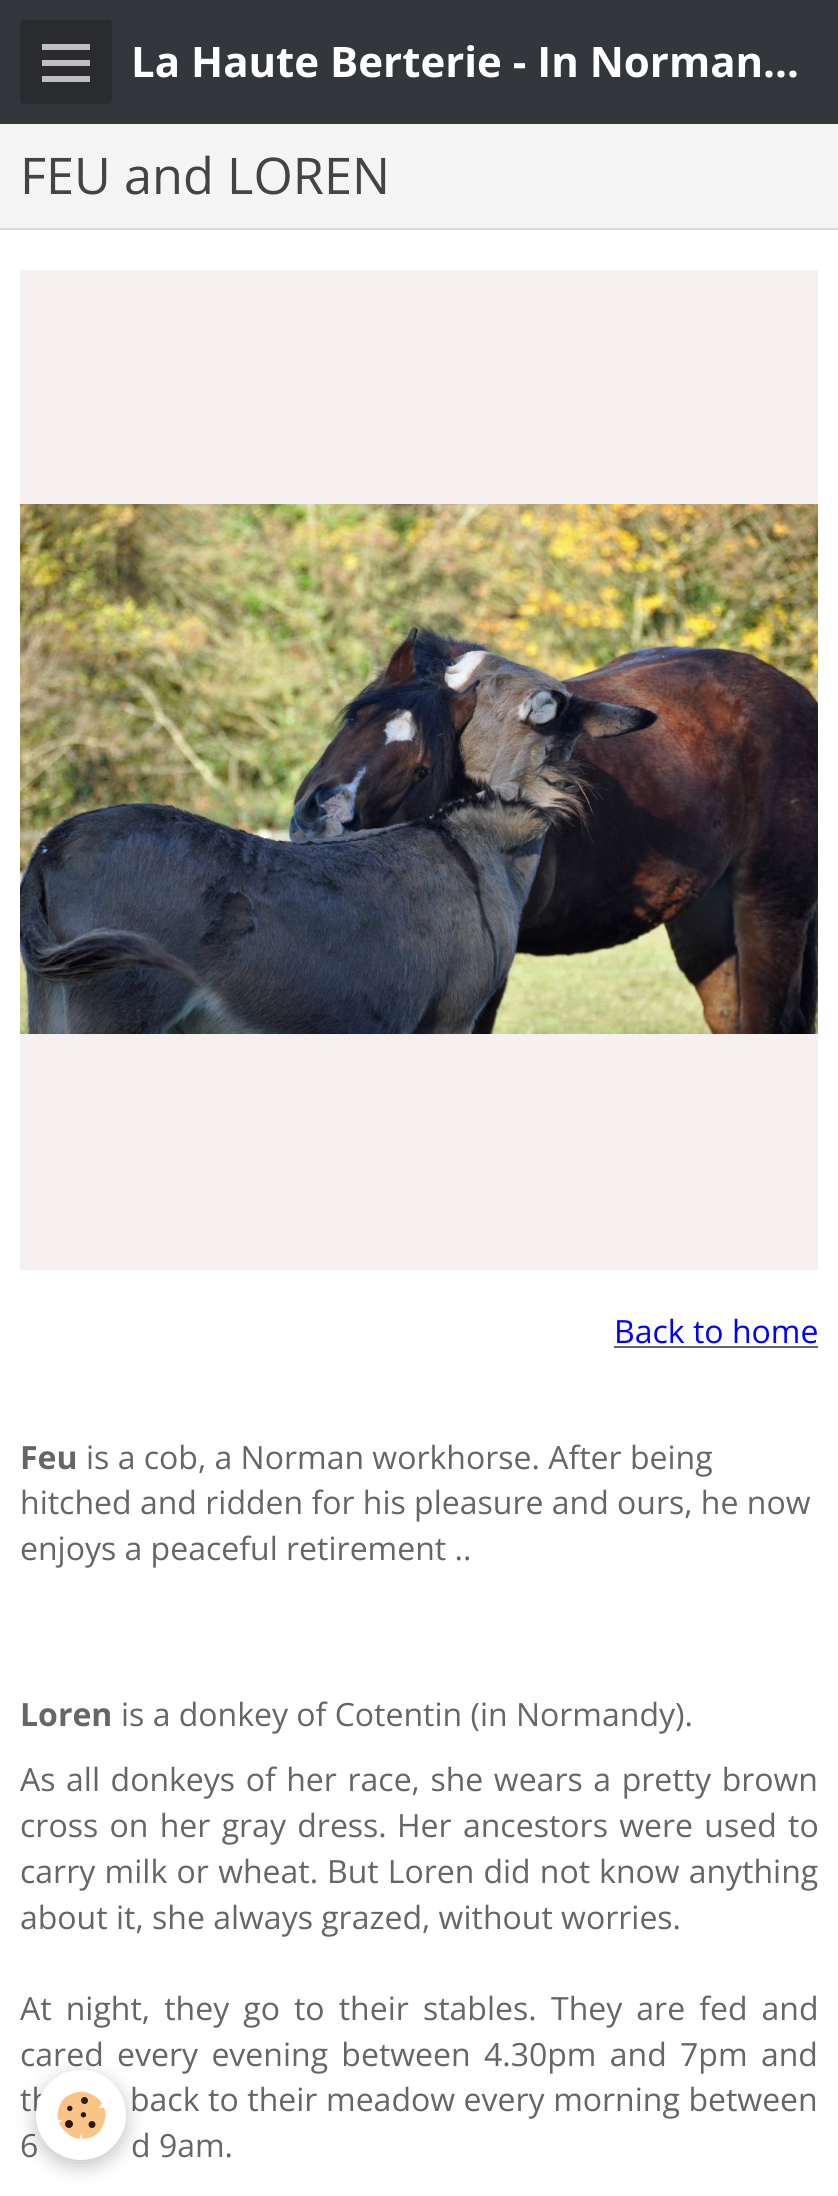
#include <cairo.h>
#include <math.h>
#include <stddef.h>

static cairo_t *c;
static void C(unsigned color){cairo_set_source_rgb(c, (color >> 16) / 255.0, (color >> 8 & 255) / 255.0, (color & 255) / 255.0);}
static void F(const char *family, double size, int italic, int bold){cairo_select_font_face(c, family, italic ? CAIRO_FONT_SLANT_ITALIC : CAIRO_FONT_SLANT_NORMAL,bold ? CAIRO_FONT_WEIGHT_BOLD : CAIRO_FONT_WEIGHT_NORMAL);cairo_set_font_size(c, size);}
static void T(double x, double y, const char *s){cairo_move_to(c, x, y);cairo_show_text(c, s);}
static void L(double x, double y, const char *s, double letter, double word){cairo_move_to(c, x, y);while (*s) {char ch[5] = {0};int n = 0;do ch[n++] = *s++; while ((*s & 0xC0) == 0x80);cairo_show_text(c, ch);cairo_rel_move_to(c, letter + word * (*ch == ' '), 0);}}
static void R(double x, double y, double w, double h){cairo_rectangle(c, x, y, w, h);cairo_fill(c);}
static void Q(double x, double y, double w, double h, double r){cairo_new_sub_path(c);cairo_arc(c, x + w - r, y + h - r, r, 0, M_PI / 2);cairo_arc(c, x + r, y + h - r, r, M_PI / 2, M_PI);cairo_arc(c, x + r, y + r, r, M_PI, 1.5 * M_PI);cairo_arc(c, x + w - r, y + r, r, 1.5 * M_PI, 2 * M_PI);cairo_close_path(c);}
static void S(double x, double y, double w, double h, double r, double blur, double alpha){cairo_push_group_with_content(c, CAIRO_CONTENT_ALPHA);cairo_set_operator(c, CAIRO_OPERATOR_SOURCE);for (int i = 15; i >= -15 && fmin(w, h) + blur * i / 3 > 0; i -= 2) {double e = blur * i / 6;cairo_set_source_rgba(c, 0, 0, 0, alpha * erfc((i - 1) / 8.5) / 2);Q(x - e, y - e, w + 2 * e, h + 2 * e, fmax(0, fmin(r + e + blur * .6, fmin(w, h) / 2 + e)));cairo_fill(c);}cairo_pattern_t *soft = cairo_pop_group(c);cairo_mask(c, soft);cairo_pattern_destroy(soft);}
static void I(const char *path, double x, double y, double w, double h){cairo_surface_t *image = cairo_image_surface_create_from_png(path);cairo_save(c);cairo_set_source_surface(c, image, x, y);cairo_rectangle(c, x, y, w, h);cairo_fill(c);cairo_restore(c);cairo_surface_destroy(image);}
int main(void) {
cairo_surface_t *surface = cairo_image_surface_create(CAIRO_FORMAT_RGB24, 838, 2196);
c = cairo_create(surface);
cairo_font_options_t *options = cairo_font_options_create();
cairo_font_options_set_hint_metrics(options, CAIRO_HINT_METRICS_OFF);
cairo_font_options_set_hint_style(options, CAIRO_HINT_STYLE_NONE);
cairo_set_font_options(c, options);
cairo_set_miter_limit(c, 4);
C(0xffffff);
cairo_paint(c);
C(0x33363b);
R(0,0,838,124);
C(0x292b2f);
Q(20,20,92,84,4);
cairo_fill(c);
C(0xbfbfc1);
R(42,60,48,6);
R(42,44,48,6);
R(42,76,48,6);
F("Open Sans",42,0,1);
C(0xffffff);
T(131,77,"La Haute Berterie - In Norman…");
C(0xf5f5f5);
R(0,124,838,104);
C(0xd9d9d9);
R(0,228,838,2);
F("Open Sans",50.5,0,0);
C(0x444444);
T(20,194,"FEU and LOREN");
C(0xf7f0f0);
R(20,270,798,1000);
I("1.png",20,504,798,530);
F("Open Sans",32,0,0);
C(0x0000ff);
T(614,1343,"Back to home");
C(0x666666);
R(614,1346,204,2);
F("Open Sans",32,0,1);
T(20,1469,"Feu");
F("Open Sans",32,0,0);
T(86,1469,"is a cob, a Norman workhorse. After being");
T(20,1514,"hitched and ridden for his pleasure and ours, he now");
T(20,1560,"enjoys a peaceful retirement ..");
F("Open Sans",32,0,1);
T(20,1726,"Loren");
F("Open Sans",32,0,0);
T(121,1726,"is a donkey of Cotentin (in Normandy).");
L(20,1791,"As all donkeys of her race, she wears a pretty brown",0,2.25);
L(20,1837,"cross on her gray dress.",0,3);
L(397,1837,"Her ancestors were used to",0,3);
L(20,1883,"carry milk or wheat.",0,1);
L(327,1883,"But Loren did not know anything",0,.75);
T(20,1929,"about it, she always grazed, without worries.");
L(20,2020,"At night, they go to their stables.",0,5.75);
L(551,2020,"They are fed and",0,5.75);
L(20,2066,"cared every evening between 4.30pm and 7pm and",0,5);
L(20,2111,"th",0,.25);
L(130,2111,"back to their meadow every morning between",0,.25);
T(20,2157,"6");
T(131,2157,"d 9am.");
C(0x000000);
S(36,2076,90,90,45,10,.24);
C(0xffffff);
cairo_arc(c,81,2115,45,0,2 * M_PI);
cairo_fill(c);
I("2.png",57,2091,49,48);
cairo_surface_write_to_png(surface, "o.png");
cairo_font_options_destroy(options);
cairo_destroy(c);
cairo_surface_destroy(surface);
return 0;
}
